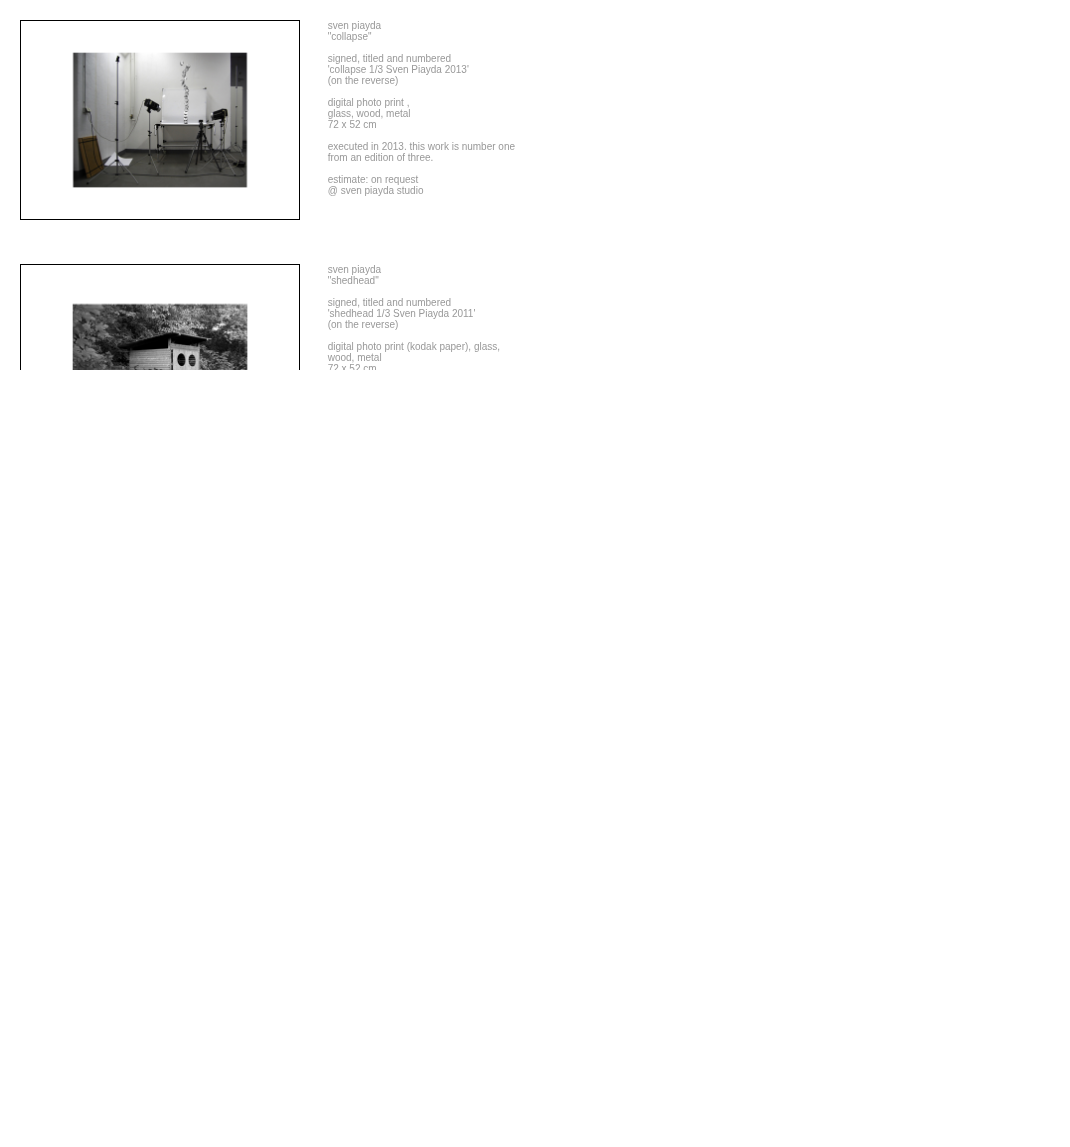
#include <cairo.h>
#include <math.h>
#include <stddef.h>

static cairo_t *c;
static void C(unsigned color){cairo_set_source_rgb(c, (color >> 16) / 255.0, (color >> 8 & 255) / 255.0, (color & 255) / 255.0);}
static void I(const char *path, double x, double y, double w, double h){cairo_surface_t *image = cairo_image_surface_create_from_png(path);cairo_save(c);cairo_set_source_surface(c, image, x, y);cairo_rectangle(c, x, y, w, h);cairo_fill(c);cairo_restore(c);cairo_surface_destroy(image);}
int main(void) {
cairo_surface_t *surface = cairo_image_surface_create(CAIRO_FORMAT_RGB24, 1070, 1147);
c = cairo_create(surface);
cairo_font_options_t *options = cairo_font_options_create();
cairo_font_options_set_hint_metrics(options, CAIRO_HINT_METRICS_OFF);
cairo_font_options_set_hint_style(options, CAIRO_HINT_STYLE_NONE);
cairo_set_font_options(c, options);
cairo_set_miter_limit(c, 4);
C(0xffffff);
cairo_paint(c);
I("1.png",20,20,495,350);
cairo_surface_write_to_png(surface, "o.png");
cairo_font_options_destroy(options);
cairo_destroy(c);
cairo_surface_destroy(surface);
return 0;
}
